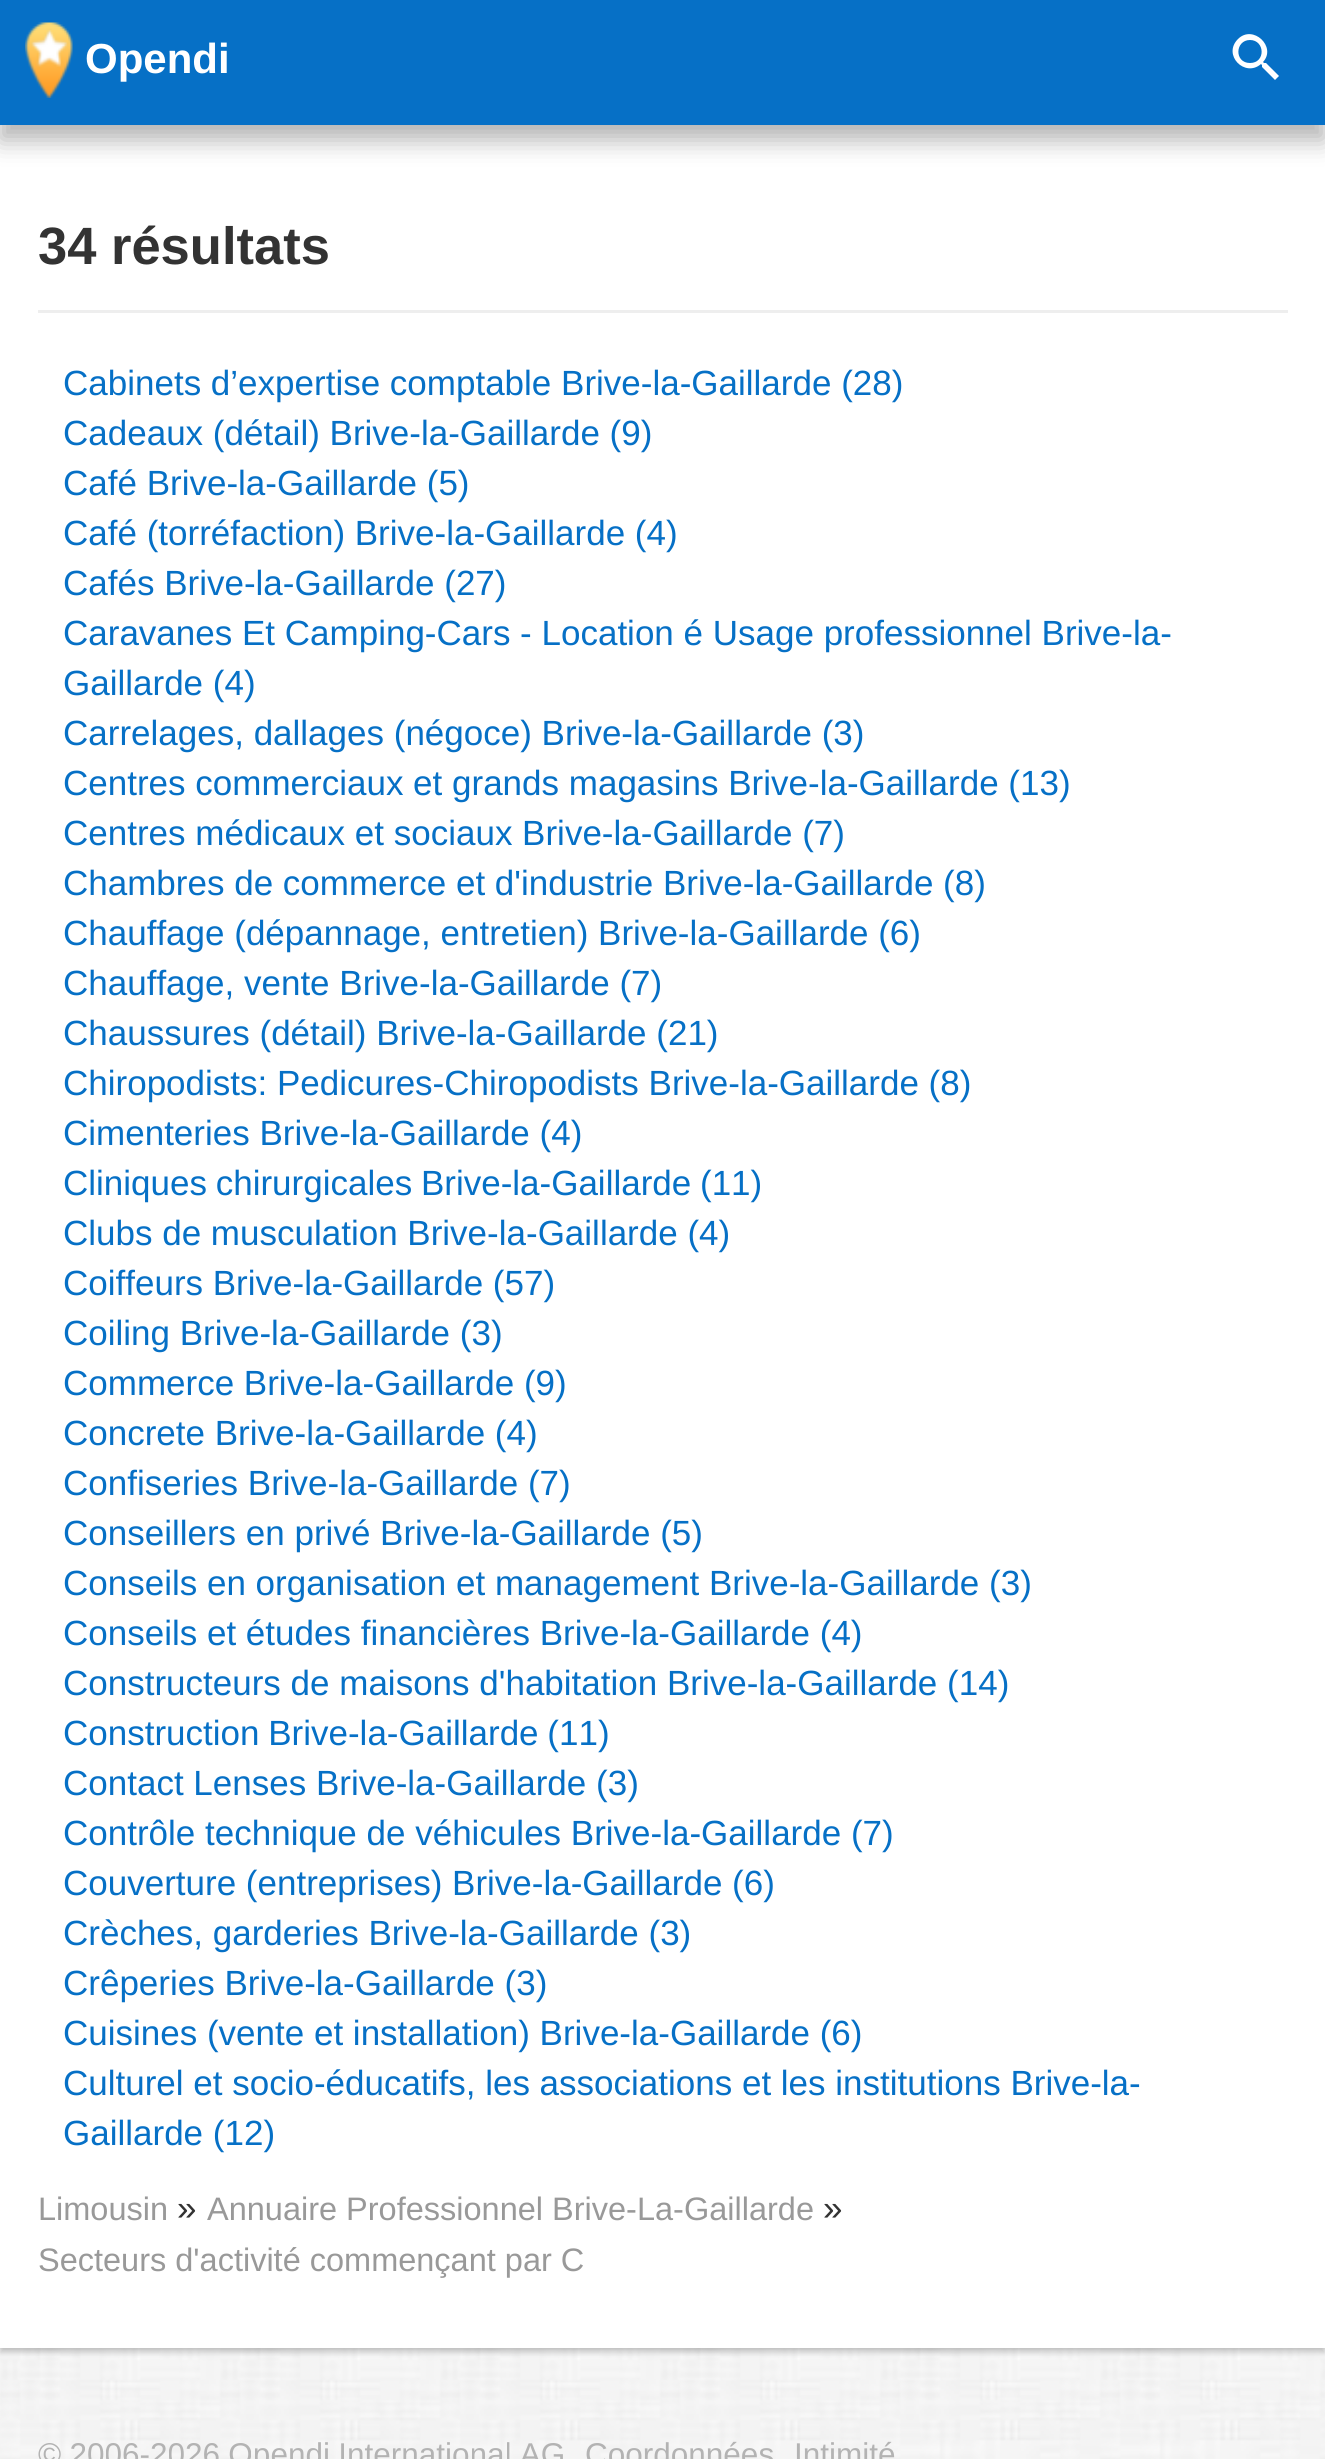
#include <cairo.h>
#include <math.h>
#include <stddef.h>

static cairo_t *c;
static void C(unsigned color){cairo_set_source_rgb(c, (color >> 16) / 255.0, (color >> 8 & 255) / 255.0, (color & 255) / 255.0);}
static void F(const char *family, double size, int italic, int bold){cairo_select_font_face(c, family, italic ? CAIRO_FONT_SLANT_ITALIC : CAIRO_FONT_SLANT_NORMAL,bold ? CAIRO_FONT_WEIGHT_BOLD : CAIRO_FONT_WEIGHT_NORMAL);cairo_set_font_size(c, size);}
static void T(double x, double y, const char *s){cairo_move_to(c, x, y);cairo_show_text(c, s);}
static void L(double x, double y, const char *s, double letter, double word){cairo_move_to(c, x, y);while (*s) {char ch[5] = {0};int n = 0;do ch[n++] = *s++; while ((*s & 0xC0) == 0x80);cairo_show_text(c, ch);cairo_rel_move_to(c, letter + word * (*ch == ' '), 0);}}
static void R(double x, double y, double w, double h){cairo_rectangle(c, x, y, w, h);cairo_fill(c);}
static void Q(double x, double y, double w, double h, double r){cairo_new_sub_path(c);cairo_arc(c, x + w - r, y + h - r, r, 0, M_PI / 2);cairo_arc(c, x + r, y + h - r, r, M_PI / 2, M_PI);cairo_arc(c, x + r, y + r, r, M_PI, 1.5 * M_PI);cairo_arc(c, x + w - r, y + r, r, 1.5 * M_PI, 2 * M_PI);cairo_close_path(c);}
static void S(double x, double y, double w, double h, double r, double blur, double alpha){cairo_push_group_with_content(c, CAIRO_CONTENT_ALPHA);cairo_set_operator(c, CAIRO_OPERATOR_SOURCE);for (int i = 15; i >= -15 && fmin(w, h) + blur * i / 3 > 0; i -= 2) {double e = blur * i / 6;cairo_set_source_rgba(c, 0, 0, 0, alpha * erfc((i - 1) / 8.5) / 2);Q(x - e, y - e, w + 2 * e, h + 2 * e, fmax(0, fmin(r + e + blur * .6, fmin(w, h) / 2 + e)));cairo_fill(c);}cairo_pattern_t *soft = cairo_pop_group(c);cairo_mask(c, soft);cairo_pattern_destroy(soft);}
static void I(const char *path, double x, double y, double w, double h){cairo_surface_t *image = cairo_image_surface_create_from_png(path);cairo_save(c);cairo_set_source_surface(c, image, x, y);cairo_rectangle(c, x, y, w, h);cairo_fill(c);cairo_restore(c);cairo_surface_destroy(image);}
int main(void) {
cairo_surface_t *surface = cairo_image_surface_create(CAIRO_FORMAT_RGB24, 1325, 2459);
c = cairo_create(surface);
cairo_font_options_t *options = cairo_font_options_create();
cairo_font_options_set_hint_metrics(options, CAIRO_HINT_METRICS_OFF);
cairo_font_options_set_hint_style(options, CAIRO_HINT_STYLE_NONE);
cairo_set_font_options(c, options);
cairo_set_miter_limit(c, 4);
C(0xffffff);
cairo_paint(c);
I("1.png",0,2348,1325,111);
C(0x000000);
S(0,125,1325,2223,0,2.5,.12);
S(0,130,1325,2223,0,2.5,.16);
C(0xffffff);
R(0,125,1325,2223);
C(0x000000);
S(0,15,1325,125,0,12.5,.3);
C(0x0670c6);
R(0,0,1325,125);
I("2.png",25,22,48,76);
F("Liberation Sans",42,0,1);
C(0xffffff);
T(85,73,"Opendi");
cairo_new_path(c);
cairo_move_to(c,1266,63);
cairo_line_to(c,1264,63);
cairo_line_to(c,1263,62);
cairo_curve_to(c,1277,47,1253,24,1238,39);
cairo_curve_to(c,1222,55,1245,78,1261,64);
cairo_line_to(c,1262,65);
cairo_line_to(c,1262,67);
cairo_line_to(c,1275,80);
cairo_line_to(c,1279,76);
cairo_close_path(c);
cairo_move_to(c,1250,63);
cairo_curve_to(c,1234,63,1235,40,1250,40);
cairo_curve_to(c,1265,40,1266,63,1250,63);
cairo_close_path(c);
cairo_fill(c);
C(0xeeeeee);
R(38,310,1250,3);
F("Liberation Sans",52.5,0,1);
C(0x333333);
T(38,264,"34 résultats");
F("Liberation Sans",35,0,0);
C(0x0670c6);
T(63,395,"Cabinets d’expertise comptable Brive-la-Gaillarde (28)");
T(63,445,"Cadeaux (détail) Brive-la-Gaillarde (9)");
T(63,495,"Café Brive-la-Gaillarde (5)");
T(63,545,"Café (torréfaction) Brive-la-Gaillarde (4)");
T(63,595,"Cafés Brive-la-Gaillarde (27)");
T(63,645,"Caravanes Et Camping-Cars - Location é Usage professionnel Brive-la-");
T(63,695,"Gaillarde (4)");
T(63,745,"Carrelages, dallages (négoce) Brive-la-Gaillarde (3)");
T(63,795,"Centres commerciaux et grands magasins Brive-la-Gaillarde (13)");
T(63,845,"Centres médicaux et sociaux Brive-la-Gaillarde (7)");
T(63,895,"Chambres de commerce et d'industrie Brive-la-Gaillarde (8)");
T(63,945,"Chauffage (dépannage, entretien) Brive-la-Gaillarde (6)");
T(63,995,"Chauffage, vente Brive-la-Gaillarde (7)");
T(63,1045,"Chaussures (détail) Brive-la-Gaillarde (21)");
T(63,1095,"Chiropodists: Pedicures-Chiropodists Brive-la-Gaillarde (8)");
T(63,1145,"Cimenteries Brive-la-Gaillarde (4)");
L(63,1195,"Cliniques chirurgicales Brive-la-Gaillarde (11)",0,-1);
T(63,1245,"Clubs de musculation Brive-la-Gaillarde (4)");
T(63,1295,"Coiffeurs Brive-la-Gaillarde (57)");
T(63,1345,"Coiling Brive-la-Gaillarde (3)");
T(63,1395,"Commerce Brive-la-Gaillarde (9)");
T(63,1445,"Concrete Brive-la-Gaillarde (4)");
T(63,1495,"Confiseries Brive-la-Gaillarde (7)");
T(63,1545,"Conseillers en privé Brive-la-Gaillarde (5)");
T(63,1595,"Conseils en organisation et management Brive-la-Gaillarde (3)");
T(63,1645,"Conseils et études financières Brive-la-Gaillarde (4)");
T(63,1695,"Constructeurs de maisons d'habitation Brive-la-Gaillarde (14)");
L(63,1745,"Construction Brive-la-Gaillarde (11)",0,-1);
T(63,1795,"Contact Lenses Brive-la-Gaillarde (3)");
T(63,1845,"Contrôle technique de véhicules Brive-la-Gaillarde (7)");
T(63,1895,"Couverture (entreprises) Brive-la-Gaillarde (6)");
T(63,1945,"Crèches, garderies Brive-la-Gaillarde (3)");
T(63,1995,"Crêperies Brive-la-Gaillarde (3)");
T(63,2045,"Cuisines (vente et installation) Brive-la-Gaillarde (6)");
T(63,2095,"Culturel et socio-éducatifs, les associations et les institutions Brive-la-");
T(63,2145,"Gaillarde (12)");
F("Liberation Sans",32.5,0,0);
C(0x999999);
T(38,2220,"Limousin");
F("Liberation Sans",35,0,0);
C(0x333333);
T(177,2220,"»");
F("Liberation Sans",32.5,0,0);
C(0x999999);
T(207,2220,"Annuaire Professionnel Brive-La-Gaillarde");
F("Liberation Sans",35,0,0);
C(0x333333);
T(823,2220,"»");
F("Liberation Sans",32.5,0,0);
C(0x999999);
T(38,2271,"Secteurs d'activité commençant par C");
F("Liberation Sans",31.5,0,0);
C(0xb3b3b3);
L(38,2465,"© 2006-2026 Opendi International AG",0,-.5);
T(585,2465,"Coordonnées");
T(794,2465,"Intimité");
cairo_surface_write_to_png(surface, "o.png");
cairo_font_options_destroy(options);
cairo_destroy(c);
cairo_surface_destroy(surface);
return 0;
}
